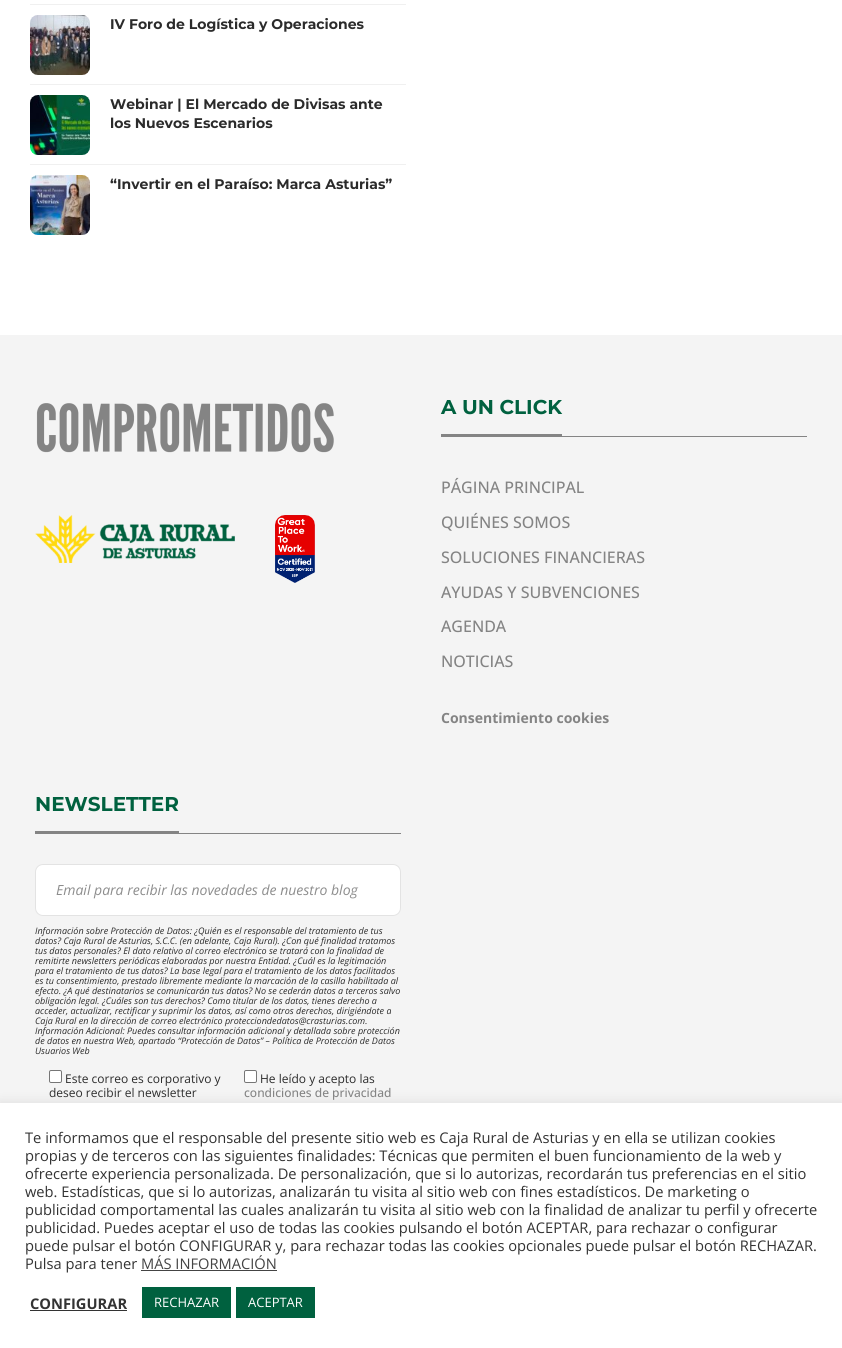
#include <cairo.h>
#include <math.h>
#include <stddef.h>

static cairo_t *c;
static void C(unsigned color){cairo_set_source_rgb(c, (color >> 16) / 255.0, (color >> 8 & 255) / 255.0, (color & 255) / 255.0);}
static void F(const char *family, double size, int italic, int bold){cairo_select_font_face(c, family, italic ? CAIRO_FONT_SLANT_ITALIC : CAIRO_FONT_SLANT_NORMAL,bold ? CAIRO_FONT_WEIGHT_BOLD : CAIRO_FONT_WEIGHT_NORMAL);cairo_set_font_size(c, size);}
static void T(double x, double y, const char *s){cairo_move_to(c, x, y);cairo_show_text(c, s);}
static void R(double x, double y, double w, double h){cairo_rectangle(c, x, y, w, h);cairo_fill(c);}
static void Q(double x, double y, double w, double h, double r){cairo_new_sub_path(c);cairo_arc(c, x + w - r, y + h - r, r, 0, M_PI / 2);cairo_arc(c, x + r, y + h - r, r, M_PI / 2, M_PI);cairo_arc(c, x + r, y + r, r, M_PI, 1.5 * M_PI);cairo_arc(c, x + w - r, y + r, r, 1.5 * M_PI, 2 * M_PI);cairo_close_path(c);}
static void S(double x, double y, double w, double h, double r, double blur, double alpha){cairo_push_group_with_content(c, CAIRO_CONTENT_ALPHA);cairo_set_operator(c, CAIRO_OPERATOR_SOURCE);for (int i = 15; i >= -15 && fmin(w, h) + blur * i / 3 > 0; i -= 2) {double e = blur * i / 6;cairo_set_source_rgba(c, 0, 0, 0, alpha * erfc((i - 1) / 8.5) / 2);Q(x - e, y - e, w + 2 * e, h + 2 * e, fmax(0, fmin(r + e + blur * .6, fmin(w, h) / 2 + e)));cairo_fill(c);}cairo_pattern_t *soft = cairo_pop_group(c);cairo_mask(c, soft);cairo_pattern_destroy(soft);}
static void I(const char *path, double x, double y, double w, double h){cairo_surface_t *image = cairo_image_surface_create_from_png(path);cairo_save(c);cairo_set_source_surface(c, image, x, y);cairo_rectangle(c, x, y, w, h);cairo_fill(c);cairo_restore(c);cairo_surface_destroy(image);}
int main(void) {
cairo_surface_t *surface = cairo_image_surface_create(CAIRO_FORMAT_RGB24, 842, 1348);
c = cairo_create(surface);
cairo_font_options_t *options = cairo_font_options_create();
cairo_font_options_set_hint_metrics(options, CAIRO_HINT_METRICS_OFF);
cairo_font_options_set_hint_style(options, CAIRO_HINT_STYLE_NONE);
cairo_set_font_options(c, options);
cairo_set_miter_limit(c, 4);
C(0xffffff);
cairo_paint(c);
C(0xf0f0f0);
R(30,4,376,1);
R(30,84,376,1);
I("1.png",30,15,60,60);
F("Montserrat",14,0,1);
C(0x2b2b2b);
T(110,29,"IV Foro de Logística y Operaciones");
C(0xf0f0f0);
R(30,164,376,1);
I("2.png",30,95,60,60);
C(0x2b2b2b);
T(110,109,"Webinar | El Mercado de Divisas ante");
T(110,128,"los Nuevos Escenarios");
I("3.png",30,175,60,60);
T(110,189,"“Invertir en el Paraíso: Marca Asturias”");
C(0xf4f4f4);
R(0,335,842,768);
I("4.png",36,403,298,50);
I("5.png",35,515,200,48);
I("6.png",275,515,40,68);
C(0x848484);
R(441,436,366,1);
R(441,434,121,2);
F("Montserrat",20,0,1);
C(0x00613f);
T(441,414,"A UN CLICK");
F("Open Sans Medium",16,0,0);
C(0x848484);
T(441,493,"PÁGINA PRINCIPAL");
T(441,528,"QUIÉNES SOMOS");
T(441,563,"SOLUCIONES FINANCIERAS");
T(441,598,"AYUDAS Y SUBVENCIONES");
T(441,632,"AGENDA");
T(441,667,"NOTICIAS");
F("Open Sans",14,0,1);
T(441,723,"Consentimiento cookies");
R(35,833,366,1);
R(35,831,144,2);
F("Montserrat",20,0,1);
C(0x00613f);
T(35,811,"NEWSLETTER");
C(0xffffff);
Q(35.5,864.5,365,51,7.5);
cairo_fill_preserve(c);
C(0xe3e3e3);
cairo_set_line_width(c,1);
cairo_stroke(c);
F("Open Sans",14,1,0);
C(0x8d8d8d);
T(56,895,"Email para recibir las novedades de nuestro blog");
F("Open Sans",9,1,0);
C(0x2b2b2b);
T(35,934,"Información sobre Protección de Datos: ¿Quién es el responsable del tratamiento de tus");
T(35,944,"datos? Caja Rural de Asturias, S.C.C. (en adelante, Caja Rural). ¿Con qué finalidad tratamos");
T(35,954,"tus datos personales? El dato relativo al correo electrónico se tratará con la finalidad de");
T(35,964,"remitirte newsletters periódicas elaboradas por nuestra Entidad. ¿Cuál es la legitimación");
T(35,974,"para el tratamiento de tus datos? La base legal para el tratamiento de los datos facilitados");
T(35,984,"es tu consentimiento, prestado libremente mediante la marcación de la casilla habilitada al");
T(35,994,"efecto. ¿A qué destinatarios se comunicarán tus datos? No se cederán datos a terceros salvo");
T(35,1004,"obligación legal. ¿Cuáles son tus derechos? Como titular de los datos, tienes derecho a");
T(35,1014,"acceder, actualizar, rectificar y suprimir los datos, así como otros derechos, dirigiéndote a");
T(35,1024,"Caja Rural en la dirección de correo electrónico protecciondedatos@crasturias.com.");
T(35,1034,"Información Adicional: Puedes consultar información adicional y detallada sobre protección");
T(35,1044,"de datos en nuestra Web, apartado “Protección de Datos” – Política de Protección de Datos");
T(35,1054,"Usuarios Web");
C(0xffffff);
Q(49.5,1070.5,12,12,1.5);
cairo_fill_preserve(c);
C(0x767676);
cairo_stroke(c);
F("Open Sans",12,0,0);
C(0x2b2b2b);
T(65,1083,"Este correo es corporativo y");
T(49,1097,"deseo recibir el newsletter");
C(0xffffff);
Q(244.5,1070.5,12,12,1.5);
cairo_fill_preserve(c);
C(0x767676);
cairo_stroke(c);
C(0x2b2b2b);
T(260,1083,"He leído y acepto las");
F("Open Sans Medium",12,0,0);
C(0x848484);
T(244,1097,"condiciones de privacidad");
C(0xacabab);
S(0,1102,842,245,0,5,.3);
C(0xffffff);
R(0,1103,842,245);
F("Open Sans",14.67,0,0);
C(0x333333);
T(25,1143,"Te informamos que el responsable del presente sitio web es Caja Rural de Asturias y en ella se utilizan cookies");
T(25,1161,"propias y de terceros con las siguientes finalidades: Técnicas que permiten el buen funcionamiento de la web y");
T(25,1179,"ofrecerte experiencia personalizada. De personalización, que si lo autorizas, recordarán tus preferencias en el sitio");
T(25,1197,"web. Estadísticas, que si lo autorizas, analizarán tu visita al sitio web con fines estadísticos. De marketing o");
T(25,1215,"publicidad comportamental las cuales analizarán tu visita al sitio web con la finalidad de analizar tu perfil y ofrecerte");
T(25,1233,"publicidad. Puedes aceptar el uso de todas las cookies pulsando el botón ACEPTAR, para rechazar o configurar");
T(25,1251,"puede pulsar el botón CONFIGURAR y, para rechazar todas las cookies opcionales puede pulsar el botón RECHAZAR.");
T(25,1269,"Pulsa para tener");
C(0x444444);
T(141,1269,"MÁS INFORMACIÓN");
R(141,1270,136,1);
F("Open Sans",14.67,0,1);
C(0x333333);
T(30,1309,"CONFIGURAR");
R(30,1310,97,1);
C(0x00613f);
R(142,1287,89,31);
F("Open Sans",13,0,0);
C(0xffffff);
T(154,1307,"RECHAZAR");
C(0x00613f);
R(236,1287,79,31);
C(0xffffff);
T(248,1307,"ACEPTAR");
cairo_surface_write_to_png(surface, "o.png");
cairo_font_options_destroy(options);
cairo_destroy(c);
cairo_surface_destroy(surface);
return 0;
}
